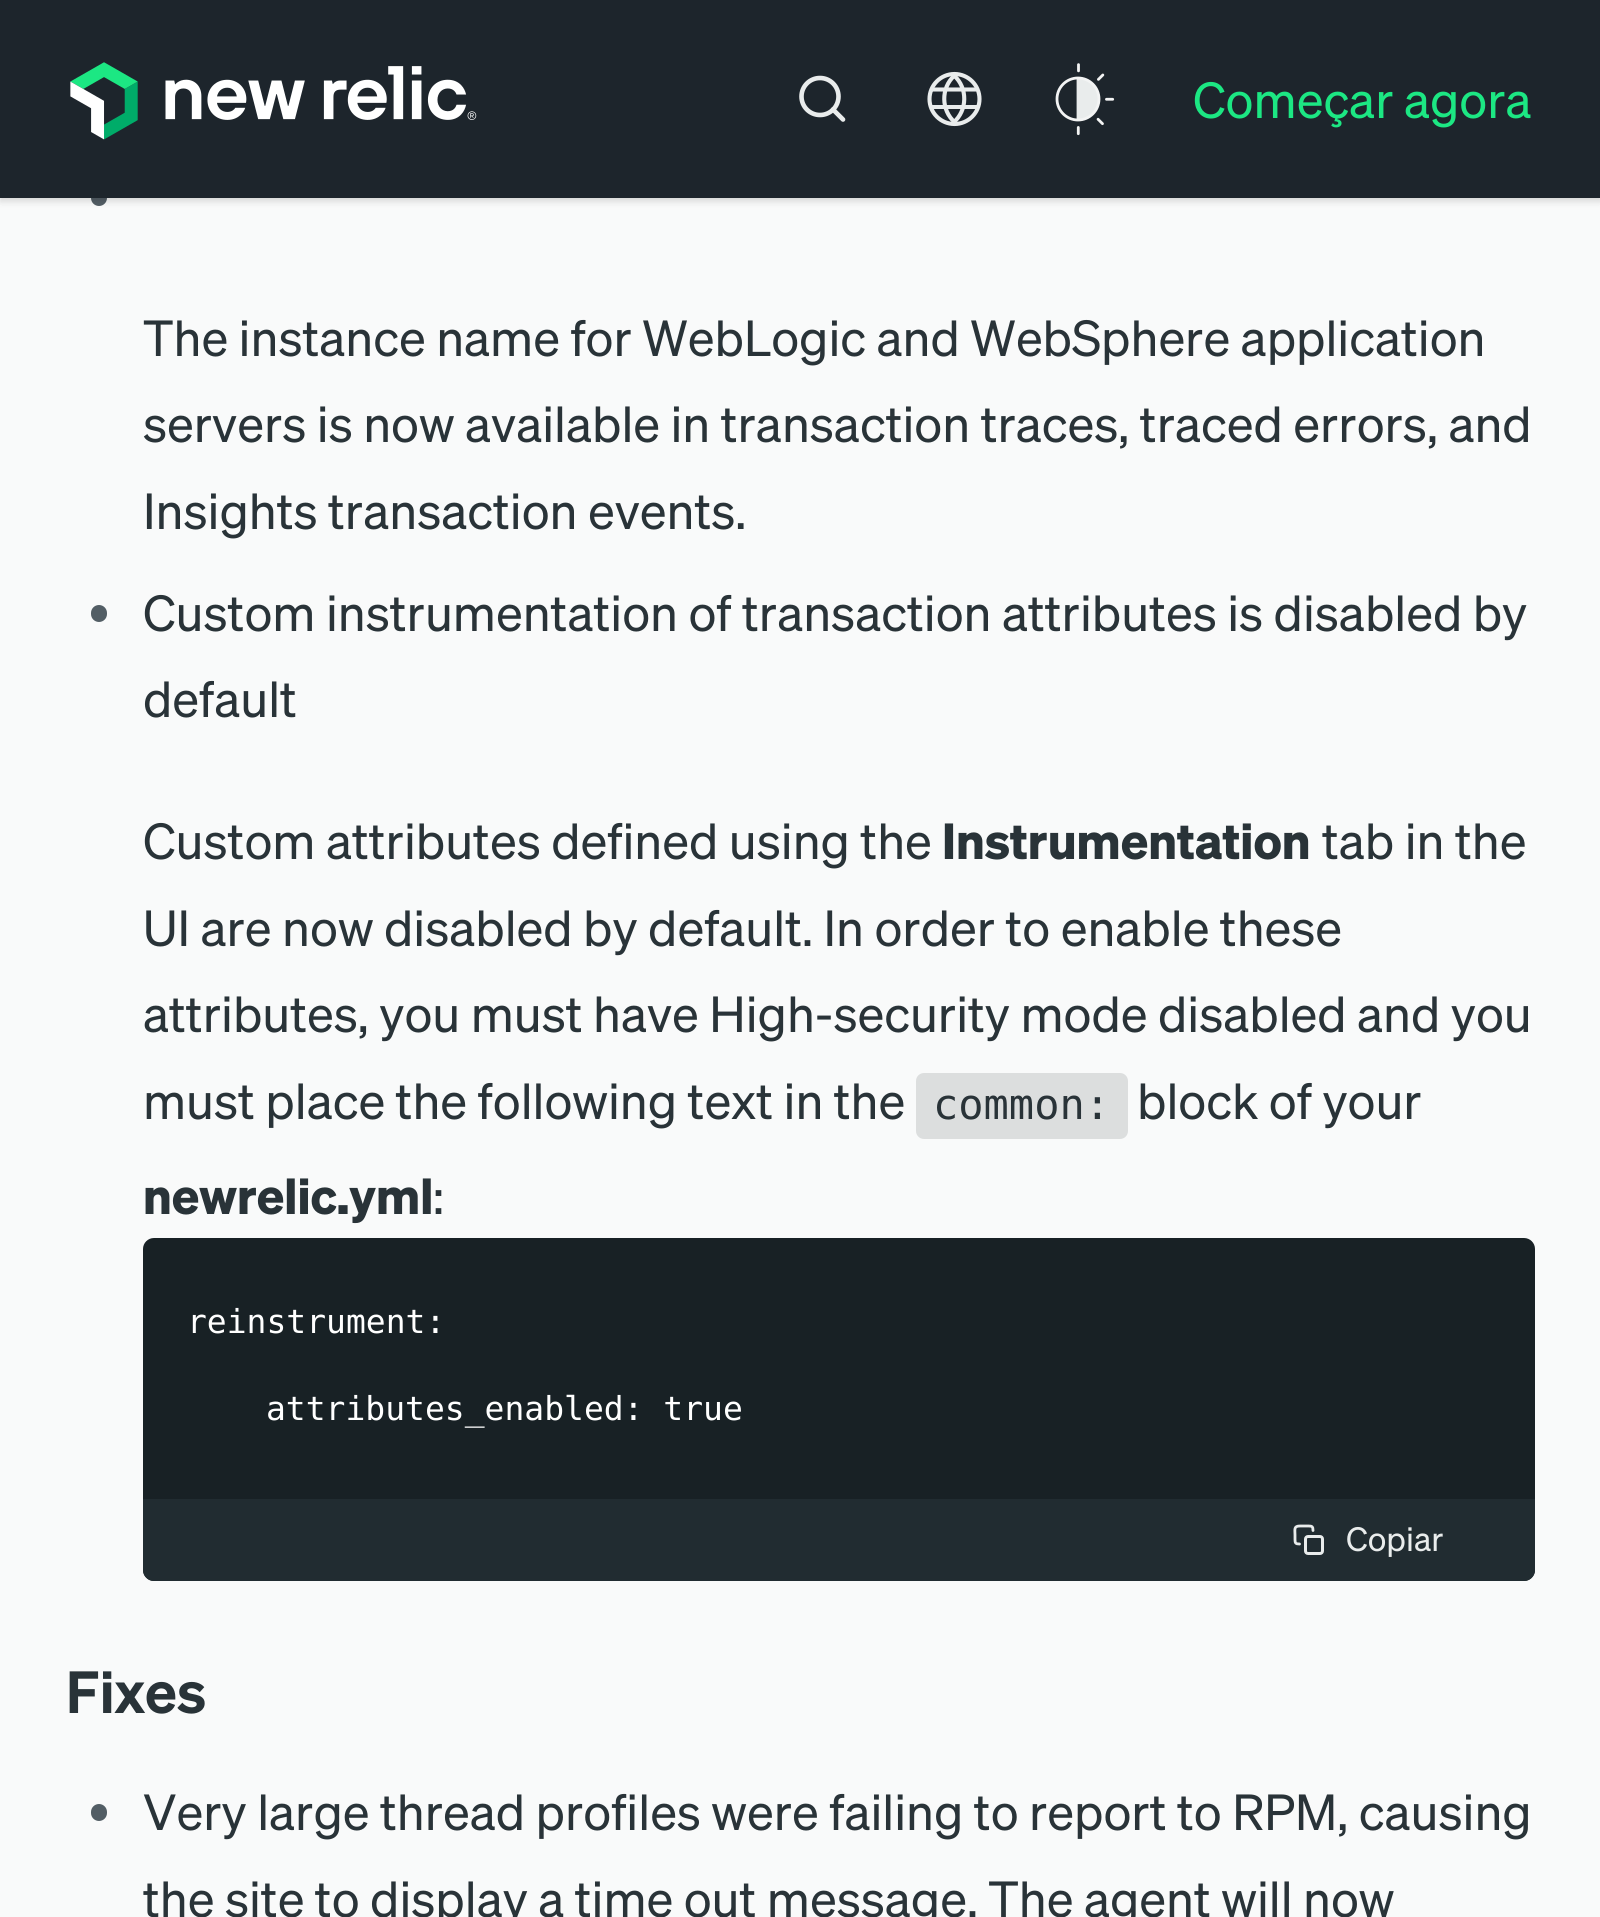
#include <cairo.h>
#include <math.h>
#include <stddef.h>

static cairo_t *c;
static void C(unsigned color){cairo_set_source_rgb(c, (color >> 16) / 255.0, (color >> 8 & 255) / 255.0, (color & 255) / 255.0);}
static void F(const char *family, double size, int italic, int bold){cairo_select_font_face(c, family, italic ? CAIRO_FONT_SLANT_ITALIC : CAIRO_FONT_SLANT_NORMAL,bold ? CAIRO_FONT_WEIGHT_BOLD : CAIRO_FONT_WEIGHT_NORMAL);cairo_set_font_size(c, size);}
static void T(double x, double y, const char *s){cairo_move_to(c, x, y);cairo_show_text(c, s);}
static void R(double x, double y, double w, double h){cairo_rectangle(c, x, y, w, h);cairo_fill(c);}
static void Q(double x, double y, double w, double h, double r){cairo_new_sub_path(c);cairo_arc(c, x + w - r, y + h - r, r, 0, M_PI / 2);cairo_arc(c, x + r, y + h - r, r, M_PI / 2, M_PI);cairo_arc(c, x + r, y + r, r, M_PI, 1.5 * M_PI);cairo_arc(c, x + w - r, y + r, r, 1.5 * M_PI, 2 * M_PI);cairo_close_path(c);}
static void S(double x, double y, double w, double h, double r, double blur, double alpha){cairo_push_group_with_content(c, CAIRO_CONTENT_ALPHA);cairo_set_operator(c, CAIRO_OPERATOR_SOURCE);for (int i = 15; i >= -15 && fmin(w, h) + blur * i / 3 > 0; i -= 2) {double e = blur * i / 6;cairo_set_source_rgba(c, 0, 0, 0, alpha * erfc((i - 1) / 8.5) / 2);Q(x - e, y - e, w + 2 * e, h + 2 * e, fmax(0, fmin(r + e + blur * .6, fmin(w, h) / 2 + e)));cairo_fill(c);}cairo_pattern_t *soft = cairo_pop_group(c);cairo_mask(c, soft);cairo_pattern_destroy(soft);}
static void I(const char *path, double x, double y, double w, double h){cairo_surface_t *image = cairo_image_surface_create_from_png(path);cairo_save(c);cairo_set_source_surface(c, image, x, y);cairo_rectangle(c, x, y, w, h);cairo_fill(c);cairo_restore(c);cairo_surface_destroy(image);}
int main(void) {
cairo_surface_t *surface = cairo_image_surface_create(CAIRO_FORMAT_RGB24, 1600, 1917);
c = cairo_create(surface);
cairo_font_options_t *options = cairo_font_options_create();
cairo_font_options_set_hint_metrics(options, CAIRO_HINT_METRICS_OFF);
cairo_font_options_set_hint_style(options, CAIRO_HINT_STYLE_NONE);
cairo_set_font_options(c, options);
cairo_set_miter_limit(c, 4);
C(0xf9fafa);
cairo_paint(c);
C(0x535e65);
cairo_arc(c,99,198,8,0,2 * M_PI);
cairo_fill(c);
C(0x000000);
S(0,3,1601,198,0,3,.06);
S(0,3,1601,198,0,4,.1);
C(0x1d252c);
R(0,0,1600,198);
I("1.png",70,62,407,78);
cairo_arc(c,820,96.5,18.5,0,2 * M_PI);
C(0xe9ecec);
cairo_set_line_width(c,4.6);
cairo_stroke(c);
cairo_new_path(c);
cairo_move_to(c,843,119.5);
cairo_line_to(c,833,109.5);
cairo_set_line_cap(c,CAIRO_LINE_CAP_ROUND);
cairo_set_line_join(c,CAIRO_LINE_JOIN_ROUND);
cairo_stroke(c);
cairo_arc(c,954.5,99,25,0,2 * M_PI);
cairo_set_line_width(c,4.1);
cairo_set_line_cap(c,CAIRO_LINE_CAP_BUTT);
cairo_set_line_join(c,CAIRO_LINE_JOIN_MITER);
cairo_stroke(c);
cairo_new_path(c);
cairo_move_to(c,955,122.5);
cairo_curve_to(c,941,110.5,940.5,88,954.5,75.5);
cairo_move_to(c,953.5,122.5);
cairo_curve_to(c,967.5,110.5,968,88,954,75.5);
cairo_move_to(c,931.5,89.5);
cairo_line_to(c,976.5,89.5);
cairo_stroke(c);
R(930,105,47,4);
I("2.png",1055,63,60,73);
F("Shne",49.5,0,0);
C(0x1ce783);
T(1193,118,"Começar agora");
C(0x293338);
T(143,356,"The instance name for WebLogic and WebSphere application");
T(143,442,"servers is now available in transaction traces, traced errors, and");
T(143,529,"Insights transaction events.");
C(0x535e65);
Q(91,605,16,17,8);
cairo_fill(c);
C(0x293338);
T(143,631,"Custom instrumentation of transaction attributes is disabled by");
T(143,717,"default");
T(143,859,"Custom attributes defined using the");
F("Shne",49.5,0,1);
T(942,859,"Instrumentation");
F("Shne",49.5,0,0);
T(1322,859,"tab in the");
T(143,946,"UI are now disabled by default. In order to enable these");
T(143,1032,"attributes, you must have High-security mode disabled and you");
T(143,1119,"must place the following text in the");
C(0xdcdede);
Q(916,1073,212,66,8);
cairo_fill(c);
F("DejaVu Sans Mono",42,0,0);
C(0x293338);
T(933,1119,"common:");
F("Shne",49.5,0,0);
T(1137,1119,"block of your");
F("Shne",49.5,0,1);
T(143,1214,"newrelic.yml");
F("Shne",49.5,0,0);
T(433,1214,":");
C(0x182125);
Q(143,1238,1392,343,11);
cairo_fill(c);
F("DejaVu Sans Mono",33,0,0);
C(0xffffff);
T(187,1333,"reinstrument:");
T(266,1420,"attributes_enabled: true");
C(0x212c31);
cairo_new_path(c);
cairo_move_to(c,143,1499);
cairo_line_to(c,1535,1499);
cairo_line_to(c,1535,1570);
cairo_curve_to(c,1535,1576,1530,1581,1524,1581);
cairo_line_to(c,154,1581);
cairo_curve_to(c,148,1581,143,1576,143,1570);
cairo_close_path(c);
cairo_fill(c);
Q(1305.5,1536.5,17,17,2.5);
C(0xe9ecec);
cairo_set_line_width(c,3);
cairo_stroke(c);
cairo_new_path(c);
cairo_move_to(c,1299.5,1544);
cairo_curve_to(c,1295.5,1544,1295,1543,1295,1539.5);
cairo_line_to(c,1295,1535);
cairo_curve_to(c,1295,1529.5,1293.5,1526,1300,1526);
cairo_line_to(c,1308.5,1526);
cairo_curve_to(c,1312,1526,1313,1526.5,1313,1530.5);
cairo_set_line_width(c,2.8);
cairo_set_line_cap(c,CAIRO_LINE_CAP_ROUND);
cairo_set_line_join(c,CAIRO_LINE_JOIN_ROUND);
cairo_stroke(c);
F("Shne",33,0,0);
T(1346,1551,"Copiar");
F("Shne SemiBold",58,0,0);
C(0x293338);
T(66,1713,"Fixes");
C(0x535e65);
Q(91,1804,16,17,8);
cairo_fill(c);
F("Shne",49.5,0,0);
C(0x293338);
T(143,1830,"Very large thread profiles were failing to report to RPM, causing");
T(143,1917,"the site to display a time out message. The agent will now");
cairo_surface_write_to_png(surface, "o.png");
cairo_font_options_destroy(options);
cairo_destroy(c);
cairo_surface_destroy(surface);
return 0;
}
